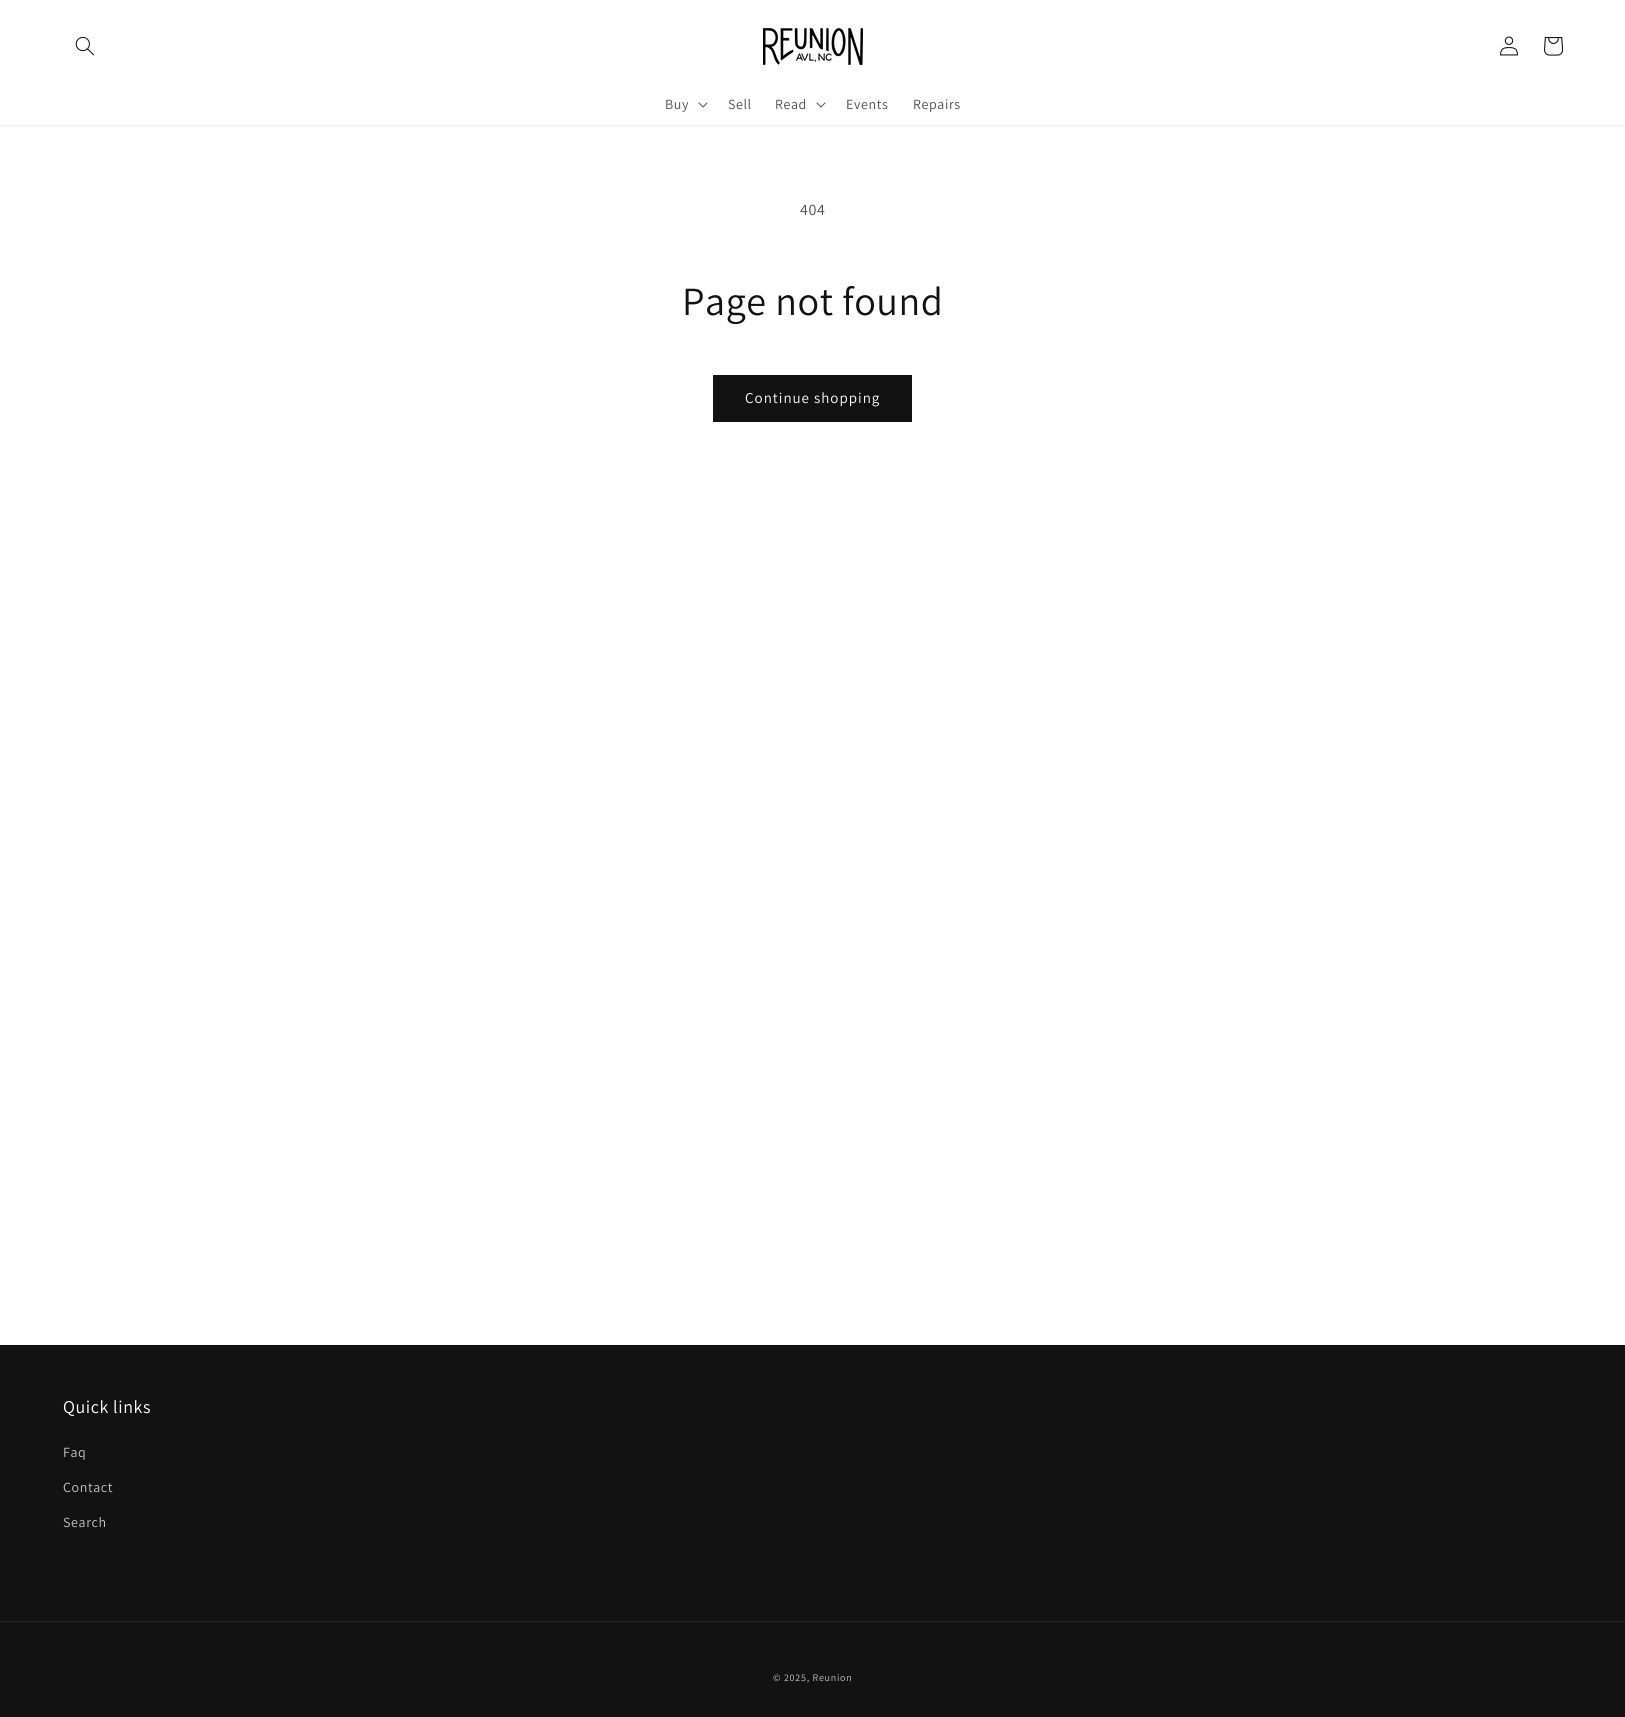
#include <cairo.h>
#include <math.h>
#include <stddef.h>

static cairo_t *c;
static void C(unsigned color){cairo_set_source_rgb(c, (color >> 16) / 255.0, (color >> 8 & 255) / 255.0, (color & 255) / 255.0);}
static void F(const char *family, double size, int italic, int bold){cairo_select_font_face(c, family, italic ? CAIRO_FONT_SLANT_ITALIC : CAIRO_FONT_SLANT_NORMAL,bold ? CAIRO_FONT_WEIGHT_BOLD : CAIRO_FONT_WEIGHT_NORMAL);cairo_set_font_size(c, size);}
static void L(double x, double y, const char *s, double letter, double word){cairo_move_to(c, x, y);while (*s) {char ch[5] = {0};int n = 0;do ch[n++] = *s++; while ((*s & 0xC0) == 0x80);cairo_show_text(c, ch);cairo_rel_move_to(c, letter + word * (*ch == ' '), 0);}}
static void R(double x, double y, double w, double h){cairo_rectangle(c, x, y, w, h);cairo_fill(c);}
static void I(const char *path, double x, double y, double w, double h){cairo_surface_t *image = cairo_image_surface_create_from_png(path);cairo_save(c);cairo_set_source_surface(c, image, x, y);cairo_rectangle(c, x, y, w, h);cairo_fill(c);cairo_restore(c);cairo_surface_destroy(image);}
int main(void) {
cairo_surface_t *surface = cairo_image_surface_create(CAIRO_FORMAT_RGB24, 1625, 1717);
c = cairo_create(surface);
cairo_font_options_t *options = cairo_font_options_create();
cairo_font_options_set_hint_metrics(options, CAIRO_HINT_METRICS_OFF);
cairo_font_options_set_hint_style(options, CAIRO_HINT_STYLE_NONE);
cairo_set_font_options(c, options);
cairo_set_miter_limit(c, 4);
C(0xffffff);
cairo_paint(c);
C(0xececec);
R(0,125,1625,1);
I("1.png",75,36,19,20);
I("2.png",763,28,100,37);
I("3.png",1500,36,18,20);
I("4.png",1544,37,20,19);
F("Assistant",14,0,0);
C(0x4d4d4d);
L(665,109,"Buy",.6,0);
I("5.png",698,102,10,6);
L(728,109,"Sell",.6,0);
L(775,109,"Read",.6,0);
I("5.png",816,102,10,6);
L(846,109,"Events",.6,0);
L(913,109,"Repairs",.6,0);
F("Assistant",16,0,0);
L(800,215,"404",.6,0);
F("Assistant",40,0,0);
C(0x121212);
L(682,315,"Page not found",.6,0);
cairo_rectangle(c,713.5,375.5,198,46);
cairo_set_line_width(c,1);
cairo_stroke(c);
R(714,376,197,45);
F("Assistant",15,0,0);
C(0xffffff);
L(745,403,"Continue shopping",1,0);
C(0x121212);
R(0,1345,1625,372);
F("Assistant",18,0,0);
C(0xffffff);
L(63,1413,"Quick links",.6,0);
F("Assistant",14,0,0);
C(0xc4c4c4);
L(63,1457,"Faq",.6,0);
L(63,1492,"Contact",.6,0);
L(63,1527,"Search",.6,0);
C(0x252525);
R(0,1621,1625,1);
F("Assistant",10,0,0);
C(0xc4c4c4);
L(773,1681,"© 2025, Reunion",.75,0);
cairo_surface_write_to_png(surface, "o.png");
cairo_font_options_destroy(options);
cairo_destroy(c);
cairo_surface_destroy(surface);
return 0;
}
